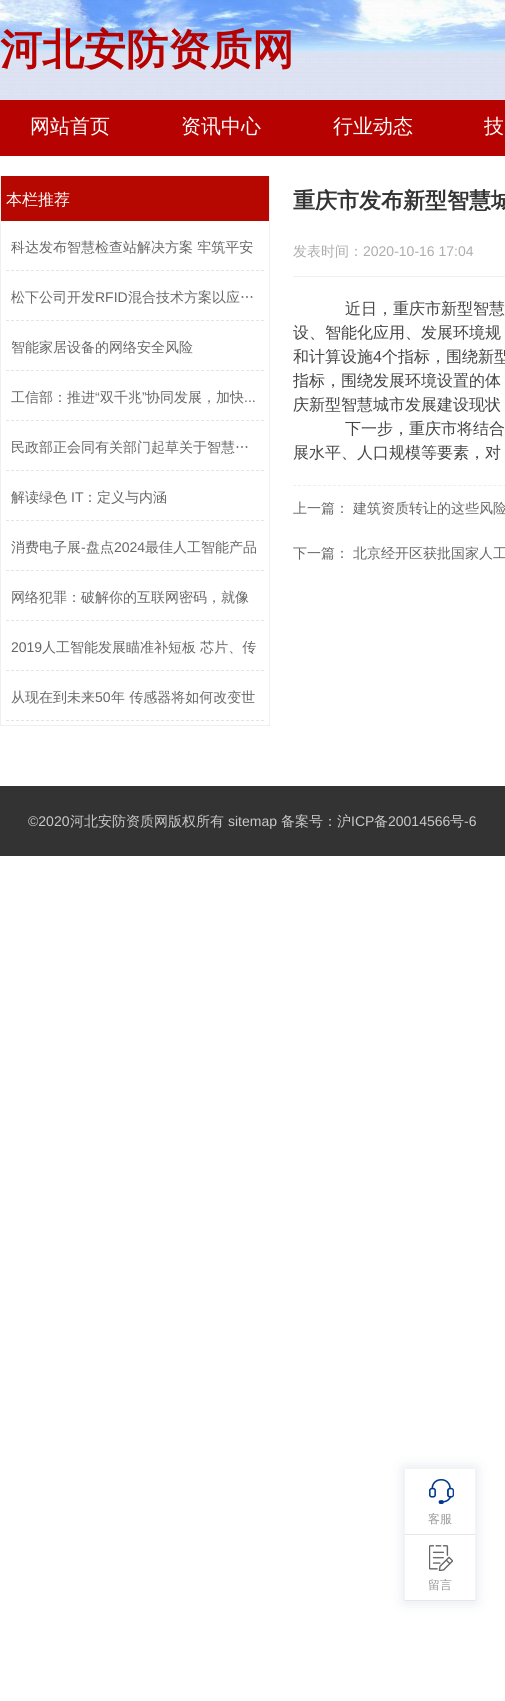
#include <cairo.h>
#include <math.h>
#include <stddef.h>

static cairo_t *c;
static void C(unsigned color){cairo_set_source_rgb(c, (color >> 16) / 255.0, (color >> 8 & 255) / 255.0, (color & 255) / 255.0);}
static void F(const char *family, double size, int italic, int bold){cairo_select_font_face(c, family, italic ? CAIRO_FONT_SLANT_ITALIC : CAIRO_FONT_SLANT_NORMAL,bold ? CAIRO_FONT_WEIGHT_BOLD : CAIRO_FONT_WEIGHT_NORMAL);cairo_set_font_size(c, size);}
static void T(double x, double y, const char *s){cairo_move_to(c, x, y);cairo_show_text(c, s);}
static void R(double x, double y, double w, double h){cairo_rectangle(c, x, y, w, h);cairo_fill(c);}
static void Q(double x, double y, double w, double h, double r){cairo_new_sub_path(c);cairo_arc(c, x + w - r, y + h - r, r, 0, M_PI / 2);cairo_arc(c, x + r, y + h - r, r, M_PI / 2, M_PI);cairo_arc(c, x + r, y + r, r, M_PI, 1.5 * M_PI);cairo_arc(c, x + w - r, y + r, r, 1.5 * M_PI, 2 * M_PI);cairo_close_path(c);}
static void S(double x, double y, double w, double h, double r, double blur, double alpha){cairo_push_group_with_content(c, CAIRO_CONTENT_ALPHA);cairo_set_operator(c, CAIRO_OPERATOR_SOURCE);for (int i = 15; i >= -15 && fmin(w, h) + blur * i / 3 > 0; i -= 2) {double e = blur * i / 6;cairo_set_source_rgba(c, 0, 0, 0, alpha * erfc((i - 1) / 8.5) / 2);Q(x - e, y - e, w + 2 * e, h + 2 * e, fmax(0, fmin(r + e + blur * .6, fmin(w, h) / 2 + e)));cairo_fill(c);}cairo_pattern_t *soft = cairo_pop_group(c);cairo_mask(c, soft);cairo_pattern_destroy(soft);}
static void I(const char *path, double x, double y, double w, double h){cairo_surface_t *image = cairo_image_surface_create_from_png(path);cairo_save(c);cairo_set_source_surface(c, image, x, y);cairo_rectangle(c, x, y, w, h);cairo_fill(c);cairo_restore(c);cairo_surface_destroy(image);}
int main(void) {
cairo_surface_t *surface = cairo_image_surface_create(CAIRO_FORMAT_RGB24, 505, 1701);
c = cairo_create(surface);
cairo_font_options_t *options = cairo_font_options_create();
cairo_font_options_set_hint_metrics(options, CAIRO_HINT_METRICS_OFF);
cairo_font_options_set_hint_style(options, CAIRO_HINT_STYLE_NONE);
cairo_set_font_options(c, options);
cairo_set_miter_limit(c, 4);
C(0xffffff);
cairo_paint(c);
I("1.png",0,0,505,100);
F("WenQuanYi Zen Hei",42,0,1);
C(0xb60201);
T(0,64,"河北安防资质网");
R(0,100,505,56);
F("WenQuanYi Zen Hei Medium",20,0,0);
C(0xffffff);
T(30,133,"网站首页");
T(181,133,"资讯中心");
T(333,133,"行业动态");
T(484,133,"技");
C(0xf0f0f0);
R(269,176,1,550);
R(0,725,270,1);
R(0,176,1,550);
C(0xb60701);
R(1,176,268,45);
F("WenQuanYi Zen Hei Medium",16,0,0);
C(0xffffff);
T(6,205,"本栏推荐");
cairo_new_path(c);
cairo_move_to(c,6,270.5);
cairo_line_to(c,264,270.5);
C(0xe5e5e5);
cairo_set_line_width(c,1);
cairo_set_dash(c,(double[]){3,2},2,0);
cairo_stroke(c);
F("WenQuanYi Zen Hei Medium",14,0,0);
C(0x666666);
T(11,252,"科达发布智慧检查站解决方案 牢筑平安");
cairo_new_path(c);
cairo_move_to(c,6,320.5);
cairo_line_to(c,264,320.5);
C(0xe5e5e5);
cairo_stroke(c);
C(0x666666);
T(11,302,"松下公司开发");
F("Liberation Sans",14,0,0);
T(95,302,"RFID");
F("WenQuanYi Zen Hei Medium",14,0,0);
T(128,302,"混合技术方案以应…");
cairo_new_path(c);
cairo_move_to(c,6,370.5);
cairo_line_to(c,264,370.5);
C(0xe5e5e5);
cairo_stroke(c);
C(0x666666);
T(11,352,"智能家居设备的网络安全风险");
cairo_new_path(c);
cairo_move_to(c,6,420.5);
cairo_line_to(c,264,420.5);
C(0xe5e5e5);
cairo_stroke(c);
C(0x666666);
T(11,402,"工信部：推进");
F("Liberation Sans",14,0,0);
T(95,402,"“");
F("WenQuanYi Zen Hei Medium",14,0,0);
T(100,402,"双千兆");
F("Liberation Sans",14,0,0);
T(142,402,"”");
F("WenQuanYi Zen Hei Medium",14,0,0);
T(146,402,"协同发展，加快");
F("Liberation Sans",14,0,0);
T(244,402,"...");
cairo_new_path(c);
cairo_move_to(c,6,470.5);
cairo_line_to(c,264,470.5);
C(0xe5e5e5);
cairo_stroke(c);
F("WenQuanYi Zen Hei Medium",14,0,0);
C(0x666666);
T(11,452,"民政部正会同有关部门起草关于智慧…");
cairo_new_path(c);
cairo_move_to(c,6,520.5);
cairo_line_to(c,264,520.5);
C(0xe5e5e5);
cairo_stroke(c);
C(0x666666);
T(11,502,"解读绿色");
F("Liberation Sans",14,0,0);
T(71,502,"IT");
F("WenQuanYi Zen Hei Medium",14,0,0);
T(83,502,"：定义与内涵");
cairo_new_path(c);
cairo_move_to(c,6,570.5);
cairo_line_to(c,264,570.5);
C(0xe5e5e5);
cairo_stroke(c);
C(0x666666);
T(11,552,"消费电子展");
F("Liberation Sans",14,0,0);
T(81,552,"-");
F("WenQuanYi Zen Hei Medium",14,0,0);
T(86,552,"盘点");
F("Liberation Sans",14,0,0);
T(114,552,"2024");
F("WenQuanYi Zen Hei Medium",14,0,0);
T(145,552,"最佳人工智能产品");
cairo_new_path(c);
cairo_move_to(c,6,620.5);
cairo_line_to(c,264,620.5);
C(0xe5e5e5);
cairo_stroke(c);
C(0x666666);
T(11,602,"网络犯罪：破解你的互联网密码，就像");
cairo_new_path(c);
cairo_move_to(c,6,670.5);
cairo_line_to(c,264,670.5);
C(0xe5e5e5);
cairo_stroke(c);
F("Liberation Sans",14,0,0);
C(0x666666);
T(11,652,"2019");
F("WenQuanYi Zen Hei Medium",14,0,0);
T(42,652,"人工智能发展瞄准补短板 芯片、传");
cairo_new_path(c);
cairo_move_to(c,6,720.5);
cairo_line_to(c,264,720.5);
C(0xe5e5e5);
cairo_stroke(c);
C(0x666666);
T(11,702,"从现在到未来");
F("Liberation Sans",14,0,0);
T(95,702,"50");
F("WenQuanYi Zen Hei Medium",14,0,0);
T(111,702,"年 传感器将如何改变世");
F("WenQuanYi Zen Hei",22,0,1);
C(0x333333);
T(293,208,"重庆市发布新型智慧城");
F("WenQuanYi Zen Hei Medium",14,0,0);
C(0xadadad);
T(293,256,"发表时间：");
F("Liberation Sans",14,0,0);
T(363,256,"2020-10-16 17:04");
C(0xf0efef);
R(293,276,212,1);
cairo_new_path(c);
cairo_move_to(c,293,485.5);
cairo_line_to(c,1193,485.5);
cairo_set_dash(c,(double[]){3,2.01},2,0);
cairo_stroke(c);
F("WenQuanYi Zen Hei Medium",16,0,0);
C(0x444444);
T(345,314,"近日，重庆市新型智慧");
T(293,338,"设、智能化应用、发展环境规");
T(293,362,"和计算设施");
F("Liberation Sans",16,0,0);
T(373,362,"4");
F("WenQuanYi Zen Hei Medium",16,0,0);
T(382,362,"个指标，围绕新型");
T(293,386,"指标，围绕发展环境设置的体");
T(293,410,"庆新型智慧城市发展建设现状");
T(345,434,"下一步，重庆市将结合");
T(293,458,"展水平、人口规模等要素，对");
F("WenQuanYi Zen Hei Medium",14,0,0);
C(0x666666);
T(293,513,"上一篇：");
T(353,513,"建筑资质转让的这些风险");
T(293,558,"下一篇：");
T(353,558,"北京经开区获批国家人工");
C(0x333333);
R(0,786,505,70);
F("Liberation Sans",14,0,0);
C(0xc9c9c9);
T(28,826,"©2020");
F("WenQuanYi Zen Hei Medium",14,0,0);
T(70,826,"河北安防资质网版权所有");
F("Liberation Sans",14,0,0);
T(228,826,"sitemap");
F("WenQuanYi Zen Hei Medium",14,0,0);
T(281,826,"备案号：");
T(337,826,"沪");
F("Liberation Sans",14,0,0);
T(351,826,"ICP");
F("WenQuanYi Zen Hei Medium",14,0,0);
T(374,826,"备");
F("Liberation Sans",14,0,0);
T(388,826,"20014566");
F("WenQuanYi Zen Hei Medium",14,0,0);
T(450,826,"号");
F("Liberation Sans",14,0,0);
T(464,826,"-6");
cairo_save(c);
cairo_set_fill_rule(c,CAIRO_FILL_RULE_EVEN_ODD);
cairo_new_path(c);
cairo_move_to(c,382,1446);
cairo_line_to(c,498,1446);
cairo_line_to(c,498,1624);
cairo_line_to(c,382,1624);
cairo_close_path(c);
cairo_move_to(c,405,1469);
cairo_line_to(c,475,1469);
cairo_line_to(c,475,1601);
cairo_line_to(c,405,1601);
cairo_close_path(c);
cairo_clip(c);
C(0x133169);
S(404,1468,72,134,0,7,.12);
cairo_restore(c);
I("2.png",429,1479,25,25);
C(0xe6e6e6);
R(405,1534,70,1);
F("WenQuanYi Zen Hei Medium",12,0,0);
C(0x999999);
T(428,1523,"客服");
I("3.png",429,1545,24,26);
C(0xe6e6e6);
R(405,1600,70,1);
C(0x999999);
T(428,1589,"留言");
cairo_surface_write_to_png(surface, "o.png");
cairo_font_options_destroy(options);
cairo_destroy(c);
cairo_surface_destroy(surface);
return 0;
}
